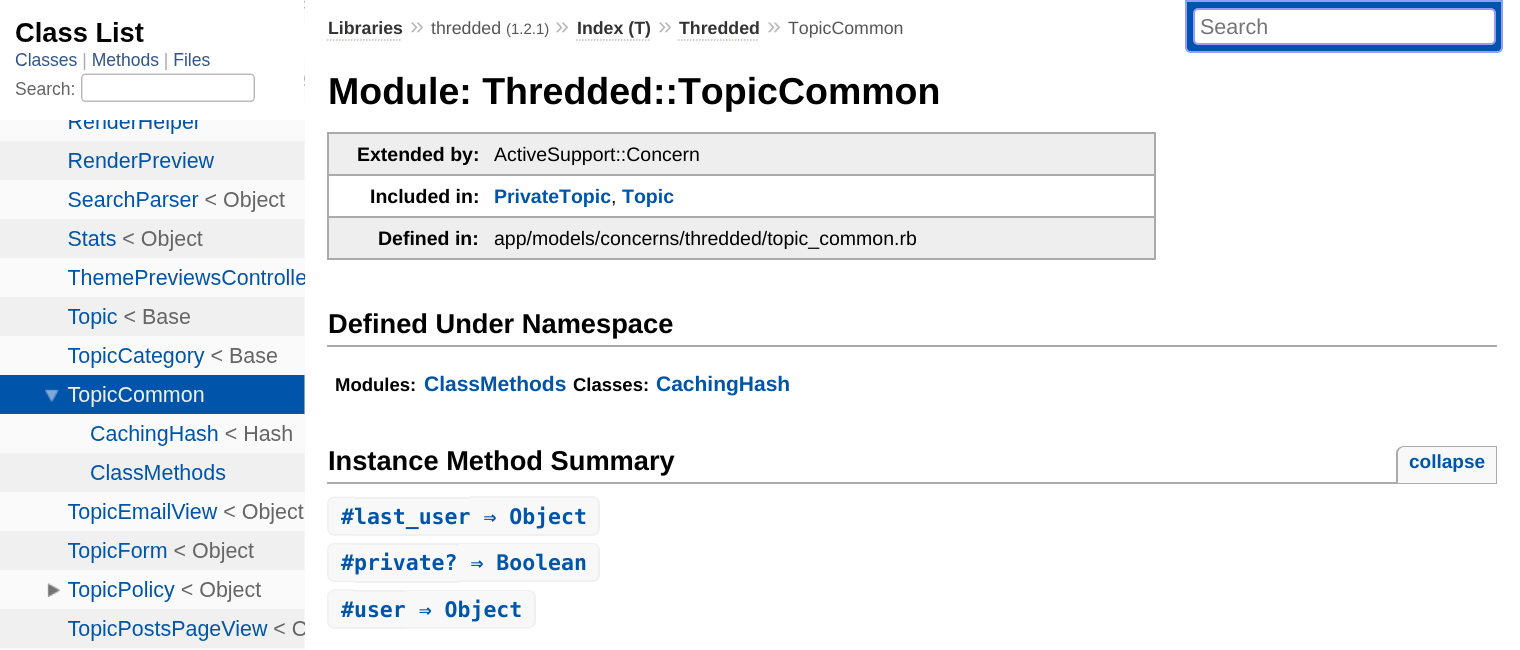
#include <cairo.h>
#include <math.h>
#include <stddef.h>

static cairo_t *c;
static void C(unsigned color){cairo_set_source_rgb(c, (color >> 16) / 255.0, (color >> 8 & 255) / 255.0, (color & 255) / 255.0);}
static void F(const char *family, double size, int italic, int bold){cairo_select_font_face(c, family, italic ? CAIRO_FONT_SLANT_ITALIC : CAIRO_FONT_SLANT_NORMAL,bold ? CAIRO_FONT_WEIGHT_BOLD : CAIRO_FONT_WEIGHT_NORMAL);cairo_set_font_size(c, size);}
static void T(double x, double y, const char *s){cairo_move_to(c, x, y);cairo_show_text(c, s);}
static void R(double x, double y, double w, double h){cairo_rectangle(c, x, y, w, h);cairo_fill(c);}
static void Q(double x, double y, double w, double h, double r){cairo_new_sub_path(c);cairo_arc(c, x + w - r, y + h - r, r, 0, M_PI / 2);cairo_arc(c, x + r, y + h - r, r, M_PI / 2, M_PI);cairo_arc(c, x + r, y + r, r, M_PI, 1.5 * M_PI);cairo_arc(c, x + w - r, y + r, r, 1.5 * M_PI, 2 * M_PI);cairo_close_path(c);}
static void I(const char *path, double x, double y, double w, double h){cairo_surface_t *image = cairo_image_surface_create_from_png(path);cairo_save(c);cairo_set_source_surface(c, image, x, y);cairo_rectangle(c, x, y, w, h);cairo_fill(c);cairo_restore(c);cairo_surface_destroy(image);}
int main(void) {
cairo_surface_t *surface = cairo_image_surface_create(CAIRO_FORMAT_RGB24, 1520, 650);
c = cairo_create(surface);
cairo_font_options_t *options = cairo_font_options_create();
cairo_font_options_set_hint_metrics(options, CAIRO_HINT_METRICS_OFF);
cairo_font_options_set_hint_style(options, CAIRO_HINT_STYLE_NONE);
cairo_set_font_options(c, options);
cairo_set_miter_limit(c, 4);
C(0xffffff);
cairo_paint(c);
I("1.png",0,0,305,650);
F("Liberation Sans",17.75,0,1);
C(0x333333);
T(328,34,"Libraries");
cairo_new_path(c);
cairo_move_to(c,327,40);
cairo_line_to(c,402,40);
C(0xbbbbdd);
cairo_set_line_width(c,1.5);
cairo_set_dash(c,(double[]){1.5,1.5},2,0);
cairo_stroke(c);
F("Liberation Sans",25,0,0);
C(0xbbbbbb);
T(410,34,"»");
F("Liberation Sans",17.75,0,0);
C(0x555555);
T(431,34,"thredded");
F("Liberation Sans",15,0,0);
T(506,34,"(1.2.1)");
F("Liberation Sans",25,0,0);
C(0xbbbbbb);
T(555,34,"»");
F("Liberation Sans",17.75,0,1);
C(0x333333);
T(577,34,"Index (T)");
cairo_new_path(c);
cairo_move_to(c,576,40);
cairo_line_to(c,651,40);
C(0xbbbbdd);
cairo_stroke(c);
F("Liberation Sans",25,0,0);
C(0xbbbbbb);
T(658,34,"»");
F("Liberation Sans",17.75,0,1);
C(0x333333);
T(679,34,"Thredded");
cairo_new_path(c);
cairo_move_to(c,678,40);
cairo_line_to(c,759,40);
C(0xbbbbdd);
cairo_stroke(c);
F("Liberation Sans",25,0,0);
C(0xbbbbbb);
T(767,34,"»");
F("Liberation Sans",17.75,0,0);
C(0x555555);
T(788,34,"TopicCommon");
C(0x0055aa);
cairo_new_path(c);
cairo_move_to(c,1186,1);
cairo_line_to(c,1502,1);
cairo_line_to(c,1502,47);
cairo_curve_to(c,1502,50,1500,52,1497,52);
cairo_line_to(c,1191,52);
cairo_curve_to(c,1188,52,1186,50,1186,47);
cairo_close_path(c);
cairo_fill_preserve(c);
C(0x9999ff);
cairo_set_line_width(c,2);
cairo_set_dash(c,NULL,0,0);
cairo_stroke(c);
C(0xffffff);
Q(1194,9,301,35,4);
cairo_fill_preserve(c);
C(0x9999ff);
cairo_stroke(c);
F("Liberation Sans",21.5,0,0);
C(0x757575);
T(1200,34,"Search");
F("Liberation Sans",37.5,0,1);
C(0x000000);
T(328,104,"Module: Thredded::TopicCommon");
C(0xeeeeee);
R(329,134,825,40);
C(0xaaaaaa);
R(327,132,828,2);
R(327,132,2,42);
F("Liberation Sans",19.5,0,1);
C(0x000000);
T(357,161,"Extended by:");
C(0xaaaaaa);
R(327,174,828,2);
R(327,216,828,2);
R(1154,132,2,128);
F("Liberation Sans",19.5,0,0);
C(0x000000);
T(494,161,"ActiveSupport::Concern");
C(0xaaaaaa);
R(327,174,2,42);
F("Liberation Sans",19.5,0,1);
C(0x000000);
T(370,203,"Included in:");
C(0x0055aa);
T(494,203,"PrivateTopic");
F("Liberation Sans",19.5,0,0);
C(0x000000);
T(611,203,",");
F("Liberation Sans",19.5,0,1);
C(0x0055aa);
T(622,203,"Topic");
C(0xeeeeee);
R(329,218,825,40);
C(0xaaaaaa);
R(327,258,167,2);
R(327,216,2,44);
C(0x000000);
T(378,245,"Defined in:");
C(0xaaaaaa);
R(494,258,661,2);
F("Liberation Sans",19.5,0,0);
C(0x000000);
T(494,245,"app/models/concerns/thredded/topic_common.rb");
C(0xaaaaaa);
R(327,345,1170,2);
F("Liberation Sans",27.25,0,1);
C(0x000000);
T(328,333,"Defined Under Namespace");
F("Liberation Sans",18.5,0,1);
T(335,391,"Modules:");
F("Liberation Sans",21,0,1);
C(0x0055aa);
T(424,391,"ClassMethods");
F("Liberation Sans",18.5,0,1);
C(0x000000);
T(573,391,"Classes:");
F("Liberation Sans",21,0,1);
C(0x0055aa);
T(656,391,"CachingHash");
C(0xaaaaaa);
R(327,482,1170,2);
F("Liberation Sans",27.25,0,1);
C(0x000000);
T(328,470,"Instance Method Summary");
C(0xf8f8f8);
cairo_new_path(c);
cairo_move_to(c,1405,446);
cairo_line_to(c,1497,446);
cairo_line_to(c,1497,483);
cairo_line_to(c,1397,483);
cairo_line_to(c,1397,454);
cairo_curve_to(c,1397,449.5,1400.5,446,1405,446);
cairo_close_path(c);
cairo_fill(c);
C(0xaaaaaa);
cairo_set_fill_rule(c,CAIRO_FILL_RULE_EVEN_ODD);
cairo_new_path(c);
cairo_move_to(c,1404,446);
cairo_line_to(c,1497,446);
cairo_line_to(c,1497,483);
cairo_line_to(c,1396,483);
cairo_line_to(c,1396,453);
cairo_curve_to(c,1396,449,1400,446,1404,446);
cairo_close_path(c);
cairo_move_to(c,1404,447);
cairo_line_to(c,1496,447);
cairo_line_to(c,1496,483);
cairo_line_to(c,1398,483);
cairo_line_to(c,1398,453);
cairo_curve_to(c,1398,450,1401,447,1404,447);
cairo_close_path(c);
cairo_fill(c);
F("Liberation Sans",19,0,1);
C(0x0055aa);
T(1409,468,"collapse");
C(0xf8f8f8);
cairo_new_path(c);
cairo_move_to(c,335,497);
cairo_line_to(c,354,497);
cairo_line_to(c,354,536);
cairo_line_to(c,335,536);
cairo_curve_to(c,330.5,536,327,532.5,327,528);
cairo_line_to(c,327,505);
cairo_curve_to(c,327,500.5,330.5,497,335,497);
cairo_close_path(c);
cairo_fill(c);
C(0xf0f0f0);
cairo_new_path(c);
cairo_move_to(c,334.5,496.5);
cairo_line_to(c,354,496.5);
cairo_line_to(c,354,535.5);
cairo_line_to(c,334.5,535.5);
cairo_curve_to(c,330.5,535.5,327,532,327,528);
cairo_line_to(c,327,504);
cairo_curve_to(c,327,500,330.5,496.5,334.5,496.5);
cairo_close_path(c);
cairo_move_to(c,334.5,498);
cairo_line_to(c,354,498);
cairo_line_to(c,354,534);
cairo_line_to(c,334.5,534);
cairo_curve_to(c,331,534,328.5,531.5,328.5,528);
cairo_line_to(c,328.5,504);
cairo_curve_to(c,328.5,500.5,331,498,334.5,498);
cairo_close_path(c);
cairo_fill(c);
C(0xf8f8f8);
R(354,499,116,35);
cairo_new_path(c);
cairo_move_to(c,470,497);
cairo_line_to(c,592,497);
cairo_curve_to(c,596.5,497,600,500.5,600,505);
cairo_line_to(c,600,528);
cairo_curve_to(c,600,532.5,596.5,536,592,536);
cairo_line_to(c,470,536);
cairo_close_path(c);
cairo_fill(c);
C(0xf0f0f0);
cairo_new_path(c);
cairo_move_to(c,470,496);
cairo_line_to(c,592,496);
cairo_curve_to(c,597,496,600,500,600,504);
cairo_line_to(c,600,528);
cairo_curve_to(c,600,532,597,536,592,536);
cairo_line_to(c,470,536);
cairo_close_path(c);
cairo_move_to(c,470,498);
cairo_line_to(c,592,498);
cairo_curve_to(c,596,498,598,501,598,504);
cairo_line_to(c,598,528);
cairo_curve_to(c,598,531,596,534,592,534);
cairo_line_to(c,470,534);
cairo_close_path(c);
cairo_fill(c);
F("DejaVu Sans Mono",21.5,0,1);
C(0x0055aa);
T(341,524,"#last_user ⇒ Object");
C(0xf0f0f0);
R(354,497,116,2);
R(354,534,116,2);
C(0xf8f8f8);
cairo_new_path(c);
cairo_move_to(c,335,543);
cairo_line_to(c,354,543);
cairo_line_to(c,354,582);
cairo_line_to(c,335,582);
cairo_curve_to(c,330.5,582,327,578.5,327,574);
cairo_line_to(c,327,551);
cairo_curve_to(c,327,546.5,330.5,543,335,543);
cairo_close_path(c);
cairo_fill(c);
C(0xf0f0f0);
cairo_new_path(c);
cairo_move_to(c,334.5,543);
cairo_line_to(c,354,543);
cairo_line_to(c,354,582);
cairo_line_to(c,334.5,582);
cairo_curve_to(c,330.5,582,327,578.5,327,574.5);
cairo_line_to(c,327,550.5);
cairo_curve_to(c,327,546.5,330.5,543,334.5,543);
cairo_close_path(c);
cairo_move_to(c,334.5,544.5);
cairo_line_to(c,354,544.5);
cairo_line_to(c,354,580.5);
cairo_line_to(c,334.5,580.5);
cairo_curve_to(c,331,580.5,328.5,578,328.5,574.5);
cairo_line_to(c,328.5,550.5);
cairo_curve_to(c,328.5,547,331,544.5,334.5,544.5);
cairo_close_path(c);
cairo_fill(c);
C(0xf8f8f8);
R(354,545,104,36);
cairo_new_path(c);
cairo_move_to(c,458,543);
cairo_line_to(c,592,543);
cairo_curve_to(c,596.5,543,600,546.5,600,551);
cairo_line_to(c,600,574);
cairo_curve_to(c,600,578.5,596.5,582,592,582);
cairo_line_to(c,458,582);
cairo_close_path(c);
cairo_fill(c);
C(0xf0f0f0);
cairo_new_path(c);
cairo_move_to(c,458,543);
cairo_line_to(c,592,543);
cairo_curve_to(c,597,543,600,546,600,550);
cairo_line_to(c,600,574);
cairo_curve_to(c,600,579,597,582,592,582);
cairo_line_to(c,458,582);
cairo_close_path(c);
cairo_move_to(c,458,544);
cairo_line_to(c,592,544);
cairo_curve_to(c,596,544,598,547,598,550);
cairo_line_to(c,598,574);
cairo_curve_to(c,598,578,596,580,592,580);
cairo_line_to(c,458,580);
cairo_close_path(c);
cairo_fill(c);
C(0x0055aa);
T(341,570,"#private? ⇒ Boolean");
C(0xf0f0f0);
R(354,543,104,2);
R(354,581,104,2);
C(0xf8f8f8);
cairo_new_path(c);
cairo_move_to(c,335,590);
cairo_line_to(c,354,590);
cairo_line_to(c,354,629);
cairo_line_to(c,335,629);
cairo_curve_to(c,330.5,629,327,625.5,327,621);
cairo_line_to(c,327,598);
cairo_curve_to(c,327,593.5,330.5,590,335,590);
cairo_close_path(c);
cairo_fill(c);
C(0xf0f0f0);
cairo_new_path(c);
cairo_move_to(c,334.5,589.5);
cairo_line_to(c,354,589.5);
cairo_line_to(c,354,628.5);
cairo_line_to(c,334.5,628.5);
cairo_curve_to(c,330.5,628.5,327,625,327,621);
cairo_line_to(c,327,597);
cairo_curve_to(c,327,593,330.5,589.5,334.5,589.5);
cairo_close_path(c);
cairo_move_to(c,334.5,591);
cairo_line_to(c,354,591);
cairo_line_to(c,354,627);
cairo_line_to(c,334.5,627);
cairo_curve_to(c,331,627,328.5,624.5,328.5,621);
cairo_line_to(c,328.5,597);
cairo_curve_to(c,328.5,593.5,331,591,334.5,591);
cairo_close_path(c);
cairo_fill(c);
C(0xf8f8f8);
R(354,592,51,35);
cairo_new_path(c);
cairo_move_to(c,405,590);
cairo_line_to(c,528,590);
cairo_curve_to(c,532.5,590,536,593.5,536,598);
cairo_line_to(c,536,621);
cairo_curve_to(c,536,625.5,532.5,629,528,629);
cairo_line_to(c,405,629);
cairo_close_path(c);
cairo_fill(c);
C(0xf0f0f0);
cairo_new_path(c);
cairo_move_to(c,405,590);
cairo_line_to(c,528,590);
cairo_curve_to(c,532,590,536,593,536,597);
cairo_line_to(c,536,621);
cairo_curve_to(c,536,625,532,628,528,628);
cairo_line_to(c,405,628);
cairo_close_path(c);
cairo_move_to(c,405,591);
cairo_line_to(c,528,591);
cairo_curve_to(c,531,591,534,594,534,597);
cairo_line_to(c,534,621);
cairo_curve_to(c,534,624,531,627,528,627);
cairo_line_to(c,405,627);
cairo_close_path(c);
cairo_fill(c);
C(0x0055aa);
T(341,617,"#user ⇒ Object");
C(0xf0f0f0);
R(354,590,51,2);
R(354,627,51,2);
cairo_surface_write_to_png(surface, "o.png");
cairo_font_options_destroy(options);
cairo_destroy(c);
cairo_surface_destroy(surface);
return 0;
}
